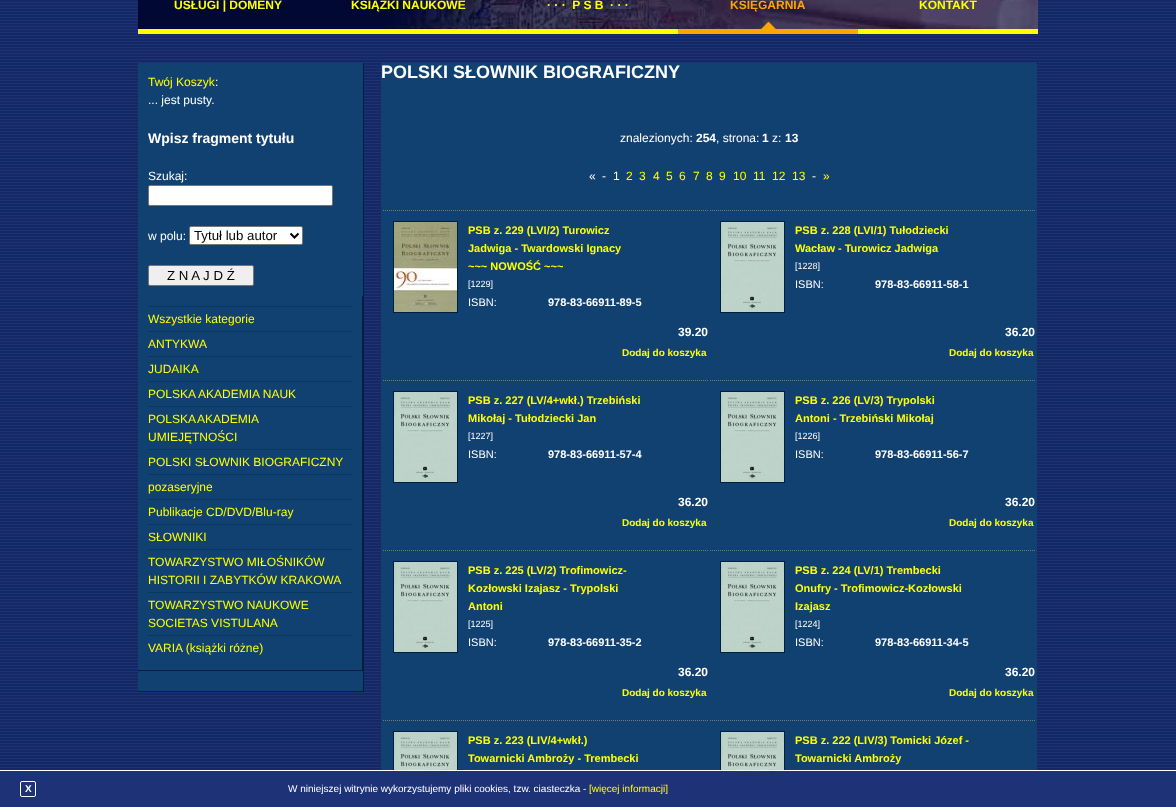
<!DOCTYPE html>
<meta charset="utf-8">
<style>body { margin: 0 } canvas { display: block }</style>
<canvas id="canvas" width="1176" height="807"></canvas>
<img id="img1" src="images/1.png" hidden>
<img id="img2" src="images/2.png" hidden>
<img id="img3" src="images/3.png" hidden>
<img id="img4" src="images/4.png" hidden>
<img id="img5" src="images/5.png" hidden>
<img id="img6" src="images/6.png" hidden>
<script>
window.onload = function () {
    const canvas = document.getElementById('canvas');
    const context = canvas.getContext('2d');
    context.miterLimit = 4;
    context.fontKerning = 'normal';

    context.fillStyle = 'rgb(255, 255, 255)';
    context.fillRect(0, 0, 1176, 807);
    context.drawImage(document.getElementById('img1'), 0, 0, 1176, 770);
    context.drawImage(document.getElementById('img2'), 138, 0, 900, 29);
    context.fillStyle = 'rgb(255, 255, 0)';
    context.fillRect(138, 29, 540, 5);
    context.drawImage(document.getElementById('img3'), 761, 21, 15, 8);
    context.fillStyle = 'rgb(255, 165, 0)';
    context.fillRect(678, 29, 180, 5);
    context.fillStyle = 'rgb(255, 255, 0)';
    context.fillRect(858, 29, 180, 5);
    context.fillStyle = 'rgb(17, 65, 113)';
    context.fillRect(138, 63, 225, 628);
    context.fillStyle = 'rgb(0, 32, 64)';
    context.fillRect(363, 63, 1, 629);
    context.fillRect(138, 691, 226, 1);
    context.fillStyle = 'rgb(255, 255, 255)';
    context.beginPath();
    context.roundRect(148.5, 185.5, 184, 20, 1.5);
    context.fill();
    context.strokeStyle = 'rgb(118, 118, 118)';
    context.stroke();
    context.beginPath();
    context.roundRect(189.5, 226.5, 113, 18, 1.5);
    context.fill();
    context.stroke();
    context.beginPath();
    context.moveTo(290.5, 233.5);
    context.lineTo(294.5, 237.5);
    context.lineTo(298.5, 233.5);
    context.strokeStyle = 'rgb(0, 0, 0)';
    context.lineWidth = 2;
    context.stroke();
    context.fillStyle = 'rgb(239, 239, 239)';
    context.beginPath();
    context.roundRect(148.5, 265.5, 105, 20, 1.5);
    context.fill();
    context.strokeStyle = 'rgb(118, 118, 118)';
    context.lineWidth = 1;
    context.stroke();
    context.fillStyle = 'rgb(0, 32, 64)';
    context.fillRect(362, 296, 1, 375);
    context.fillRect(138, 670, 225, 1);
    context.fillStyle = 'rgb(8, 55, 96)';
    context.fillRect(148, 306, 204, 1);
    context.fillRect(148, 331, 204, 1);
    context.fillRect(148, 356, 204, 1);
    context.fillRect(148, 381, 204, 1);
    context.fillRect(148, 406, 204, 1);
    context.fillRect(148, 449, 204, 1);
    context.fillRect(148, 474, 204, 1);
    context.fillRect(148, 499, 204, 1);
    context.fillRect(148, 524, 204, 1);
    context.fillRect(148, 549, 204, 1);
    context.fillRect(148, 592, 204, 1);
    context.fillRect(148, 635, 204, 1);
    context.fillStyle = 'rgb(0, 32, 64)';
    context.fillRect(1037, 63, 1, 1);
    context.fillStyle = 'rgb(17, 65, 113)';
    context.fillRect(381, 63, 656, 707);
    context.beginPath();
    context.moveTo(383, 210.5);
    context.lineTo(708, 210.5);
    context.strokeStyle = 'rgb(119, 119, 119)';
    context.setLineDash([1, 1]);
    context.stroke();
    context.drawImage(document.getElementById('img4'), 394, 222, 63, 90);
    context.strokeStyle = 'rgb(0, 32, 64)';
    context.setLineDash([]);
    context.strokeRect(393.5, 221.5, 64, 91);
    context.beginPath();
    context.moveTo(710, 210.5);
    context.lineTo(1035, 210.5);
    context.strokeStyle = 'rgb(119, 119, 119)';
    context.setLineDash([1, 1]);
    context.stroke();
    context.drawImage(document.getElementById('img5'), 721, 222, 63, 90);
    context.strokeStyle = 'rgb(0, 32, 64)';
    context.setLineDash([]);
    context.strokeRect(720.5, 221.5, 64, 91);
    context.beginPath();
    context.moveTo(383, 380.5);
    context.lineTo(708, 380.5);
    context.strokeStyle = 'rgb(119, 119, 119)';
    context.setLineDash([1, 1]);
    context.stroke();
    context.drawImage(document.getElementById('img5'), 394, 392, 63, 90);
    context.strokeStyle = 'rgb(0, 32, 64)';
    context.setLineDash([]);
    context.strokeRect(393.5, 391.5, 64, 91);
    context.beginPath();
    context.moveTo(710, 380.5);
    context.lineTo(1035, 380.5);
    context.strokeStyle = 'rgb(119, 119, 119)';
    context.setLineDash([1, 1]);
    context.stroke();
    context.drawImage(document.getElementById('img5'), 721, 392, 63, 90);
    context.strokeStyle = 'rgb(0, 32, 64)';
    context.setLineDash([]);
    context.strokeRect(720.5, 391.5, 64, 91);
    context.beginPath();
    context.moveTo(383, 550.5);
    context.lineTo(708, 550.5);
    context.strokeStyle = 'rgb(119, 119, 119)';
    context.setLineDash([1, 1]);
    context.stroke();
    context.drawImage(document.getElementById('img5'), 394, 562, 63, 90);
    context.strokeStyle = 'rgb(0, 32, 64)';
    context.setLineDash([]);
    context.strokeRect(393.5, 561.5, 64, 91);
    context.beginPath();
    context.moveTo(710, 550.5);
    context.lineTo(1035, 550.5);
    context.strokeStyle = 'rgb(119, 119, 119)';
    context.setLineDash([1, 1]);
    context.stroke();
    context.drawImage(document.getElementById('img5'), 721, 562, 63, 90);
    context.strokeStyle = 'rgb(0, 32, 64)';
    context.setLineDash([]);
    context.strokeRect(720.5, 561.5, 64, 91);
    context.beginPath();
    context.moveTo(383, 720.5);
    context.lineTo(708, 720.5);
    context.strokeStyle = 'rgb(119, 119, 119)';
    context.setLineDash([1, 1]);
    context.stroke();
    context.drawImage(document.getElementById('img6'), 394, 732, 63, 38);
    context.strokeStyle = 'rgb(0, 32, 64)';
    context.setLineDash([]);
    context.strokeRect(393.5, 731.5, 64, 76);
    context.beginPath();
    context.moveTo(710, 720.5);
    context.lineTo(1035, 720.5);
    context.strokeStyle = 'rgb(119, 119, 119)';
    context.setLineDash([1, 1]);
    context.stroke();
    context.drawImage(document.getElementById('img6'), 721, 732, 63, 38);
    context.strokeStyle = 'rgb(0, 32, 64)';
    context.setLineDash([]);
    context.strokeRect(720.5, 731.5, 64, 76);
    context.fillStyle = 'rgb(30, 50, 120)';
    context.fillRect(0, 771, 1176, 36);
    context.fillStyle = 'rgb(255, 255, 255)';
    context.fillRect(393, 770, 392, 1);
    context.beginPath();
    context.roundRect(20.5, 781.5, 15, 15, 1.5);
    context.strokeStyle = 'rgb(255, 255, 255)';
    context.stroke();
    context.font = 'bold 12px Liberation Sans';
    context.fillStyle = 'rgb(255, 255, 0)';
    context.fillText('USŁUGI | DOMENY', 174, 9);
    context.fillText('KSIĄŻKI NAUKOWE', 351, 9);
    context.fillText('· · ·  P S B  · · ·', 547, 9);
    context.fillStyle = 'rgb(255, 165, 0)';
    context.fillText('KSIĘGARNIA', 730, 9);
    context.fillStyle = 'rgb(255, 255, 0)';
    context.fillText('KONTAKT', 919, 9);
    context.font = '12px Liberation Sans';
    context.fillText('Twój Koszyk', 148, 86);
    context.fillStyle = 'rgb(255, 255, 255)';
    context.fillText(':', 215, 86);
    context.fillText('... jest pusty.', 148, 104);
    context.font = 'bold 14px Liberation Sans';
    context.fillText('Wpisz fragment tytułu', 148, 143);
    context.font = '12px Liberation Sans';
    context.fillText('Szukaj:', 148, 180);
    context.fillText('w polu:', 148, 240);
    context.font = '13.25px Liberation Sans';
    context.fillStyle = 'rgb(0, 0, 0)';
    context.fillText('Tytuł lub autor', 194, 240);
    context.fillText('Z N A J D Ź', 167, 280);
    context.font = '12px Liberation Sans';
    context.fillStyle = 'rgb(255, 255, 0)';
    context.fillText('Wszystkie kategorie', 148, 323);
    context.fillText('ANTYKWA', 148, 348);
    context.fillText('JUDAIKA', 148, 373);
    context.fillText('POLSKA AKADEMIA NAUK', 148, 398);
    context.wordSpacing = '-1px';
    context.fillText('POLSKA AKADEMIA', 148, 423);
    context.wordSpacing = '0px';
    context.fillText('UMIEJĘTNOŚCI', 148, 441);
    context.fillText('POLSKI SŁOWNIK BIOGRAFICZNY', 148, 466);
    context.fillText('pozaseryjne', 148, 491);
    context.fillText('Publikacje CD/DVD/Blu-ray', 148, 516);
    context.fillText('SŁOWNIKI', 148, 541);
    context.fillText('TOWARZYSTWO MIŁOŚNIKÓW', 148, 566);
    context.fillText('HISTORII I ZABYTKÓW KRAKOWA', 148, 584);
    context.fillText('TOWARZYSTWO NAUKOWE', 148, 609);
    context.fillText('SOCIETAS VISTULANA', 148, 627);
    context.fillText('VARIA (książki różne)', 148, 652);
    context.font = 'bold 18px Liberation Sans';
    context.fillStyle = 'rgb(255, 255, 255)';
    context.fillText('POLSKI SŁOWNIK BIOGRAFICZNY', 381, 78);
    context.font = '12px Liberation Sans';
    context.fillText('znalezionych:', 620, 142);
    context.font = 'bold 12px Liberation Sans';
    context.fillText('254', 696, 142);
    context.font = '12px Liberation Sans';
    context.fillText(', strona:', 716, 142);
    context.font = 'bold 12px Liberation Sans';
    context.fillText('1', 762, 142);
    context.font = '12px Liberation Sans';
    context.fillText('z:', 772, 142);
    context.font = 'bold 12px Liberation Sans';
    context.fillText('13', 785, 142);
    context.font = '12px Liberation Sans';
    context.fillText('«', 589, 180);
    context.fillText('-', 602, 180);
    context.fillText('1', 613, 180);
    context.fillStyle = 'rgb(255, 255, 0)';
    context.fillText('2', 626, 180);
    context.fillText('3', 639, 180);
    context.fillText('4', 653, 180);
    context.fillText('5', 666, 180);
    context.fillText('6', 679, 180);
    context.fillText('7', 693, 180);
    context.fillText('8', 706, 180);
    context.fillText('9', 719, 180);
    context.fillText('10', 733, 180);
    context.fillText('11', 753, 180);
    context.fillText('12', 772, 180);
    context.fillText('13', 792, 180);
    context.fillStyle = 'rgb(255, 255, 255)';
    context.fillText('-', 812, 180);
    context.fillStyle = 'rgb(255, 255, 0)';
    context.fillText('»', 823, 180);
    context.font = 'bold 11px Liberation Sans';
    context.fillText('PSB z. 229 (LVI/2) Turowicz', 468, 234);
    context.fillText('Jadwiga - Twardowski Ignacy', 468, 252);
    context.fillText('~~~ NOWOŚĆ ~~~', 468, 270);
    context.font = '9px Liberation Sans';
    context.fillStyle = 'rgb(255, 255, 255)';
    context.fillText('[1229]', 468, 287);
    context.font = '11px Liberation Sans';
    context.fillText('ISBN:', 468, 306);
    context.font = 'bold 11px Liberation Sans';
    context.fillText('978-83-66911-89-5', 548, 306);
    context.font = 'bold 12px Liberation Sans';
    context.fillText('39.20', 678, 336);
    context.font = 'bold 10px Liberation Sans';
    context.fillStyle = 'rgb(255, 255, 0)';
    context.fillText('Dodaj do koszyka', 622, 356);
    context.font = 'bold 11px Liberation Sans';
    context.fillText('PSB z. 228 (LVI/1) Tułodziecki', 795, 234);
    context.fillText('Wacław - Turowicz Jadwiga', 795, 252);
    context.font = '9px Liberation Sans';
    context.fillStyle = 'rgb(255, 255, 255)';
    context.fillText('[1228]', 795, 269);
    context.font = '11px Liberation Sans';
    context.fillText('ISBN:', 795, 288);
    context.font = 'bold 11px Liberation Sans';
    context.fillText('978-83-66911-58-1', 875, 288);
    context.font = 'bold 12px Liberation Sans';
    context.fillText('36.20', 1005, 336);
    context.font = 'bold 10px Liberation Sans';
    context.fillStyle = 'rgb(255, 255, 0)';
    context.fillText('Dodaj do koszyka', 949, 356);
    context.font = 'bold 11px Liberation Sans';
    context.fillText('PSB z. 227 (LV/4+wkł.) Trzebiński', 468, 404);
    context.fillText('Mikołaj - Tułodziecki Jan', 468, 422);
    context.font = '9px Liberation Sans';
    context.fillStyle = 'rgb(255, 255, 255)';
    context.fillText('[1227]', 468, 439);
    context.font = '11px Liberation Sans';
    context.fillText('ISBN:', 468, 458);
    context.font = 'bold 11px Liberation Sans';
    context.fillText('978-83-66911-57-4', 548, 458);
    context.font = 'bold 12px Liberation Sans';
    context.fillText('36.20', 678, 506);
    context.font = 'bold 10px Liberation Sans';
    context.fillStyle = 'rgb(255, 255, 0)';
    context.fillText('Dodaj do koszyka', 622, 526);
    context.font = 'bold 11px Liberation Sans';
    context.fillText('PSB z. 226 (LV/3) Trypolski', 795, 404);
    context.fillText('Antoni - Trzebiński Mikołaj', 795, 422);
    context.font = '9px Liberation Sans';
    context.fillStyle = 'rgb(255, 255, 255)';
    context.fillText('[1226]', 795, 439);
    context.font = '11px Liberation Sans';
    context.fillText('ISBN:', 795, 458);
    context.font = 'bold 11px Liberation Sans';
    context.fillText('978-83-66911-56-7', 875, 458);
    context.font = 'bold 12px Liberation Sans';
    context.fillText('36.20', 1005, 506);
    context.font = 'bold 10px Liberation Sans';
    context.fillStyle = 'rgb(255, 255, 0)';
    context.fillText('Dodaj do koszyka', 949, 526);
    context.font = 'bold 11px Liberation Sans';
    context.fillText('PSB z. 225 (LV/2) Trofimowicz-', 468, 574);
    context.fillText('Kozłowski Izajasz - Trypolski', 468, 592);
    context.fillText('Antoni', 468, 610);
    context.font = '9px Liberation Sans';
    context.fillStyle = 'rgb(255, 255, 255)';
    context.fillText('[1225]', 468, 627);
    context.font = '11px Liberation Sans';
    context.fillText('ISBN:', 468, 646);
    context.font = 'bold 11px Liberation Sans';
    context.fillText('978-83-66911-35-2', 548, 646);
    context.font = 'bold 12px Liberation Sans';
    context.fillText('36.20', 678, 676);
    context.font = 'bold 10px Liberation Sans';
    context.fillStyle = 'rgb(255, 255, 0)';
    context.fillText('Dodaj do koszyka', 622, 696);
    context.font = 'bold 11px Liberation Sans';
    context.fillText('PSB z. 224 (LV/1) Trembecki', 795, 574);
    context.fillText('Onufry - Trofimowicz-Kozłowski', 795, 592);
    context.fillText('Izajasz', 795, 610);
    context.font = '9px Liberation Sans';
    context.fillStyle = 'rgb(255, 255, 255)';
    context.fillText('[1224]', 795, 627);
    context.font = '11px Liberation Sans';
    context.fillText('ISBN:', 795, 646);
    context.font = 'bold 11px Liberation Sans';
    context.fillText('978-83-66911-34-5', 875, 646);
    context.font = 'bold 12px Liberation Sans';
    context.fillText('36.20', 1005, 676);
    context.font = 'bold 10px Liberation Sans';
    context.fillStyle = 'rgb(255, 255, 0)';
    context.fillText('Dodaj do koszyka', 949, 696);
    context.font = 'bold 11px Liberation Sans';
    context.fillText('PSB z. 223 (LIV/4+wkł.)', 468, 744);
    context.fillText('Towarnicki Ambroży - Trembecki', 468, 762);
    context.fillText('PSB z. 222 (LIV/3) Tomicki Józef -', 795, 744);
    context.fillText('Towarnicki Ambroży', 795, 762);
    context.font = 'bold 10px Liberation Sans';
    context.fillStyle = 'rgb(255, 255, 255)';
    context.fillText('X', 25, 792);
    context.font = '10px Liberation Sans';
    context.fillText('W niniejszej witrynie wykorzystujemy pliki cookies, tzw. ciasteczka -', 288, 792);
    context.fillStyle = 'rgb(255, 255, 0)';
    context.fillText('[więcej informacji]', 589, 792);
};
</script>
